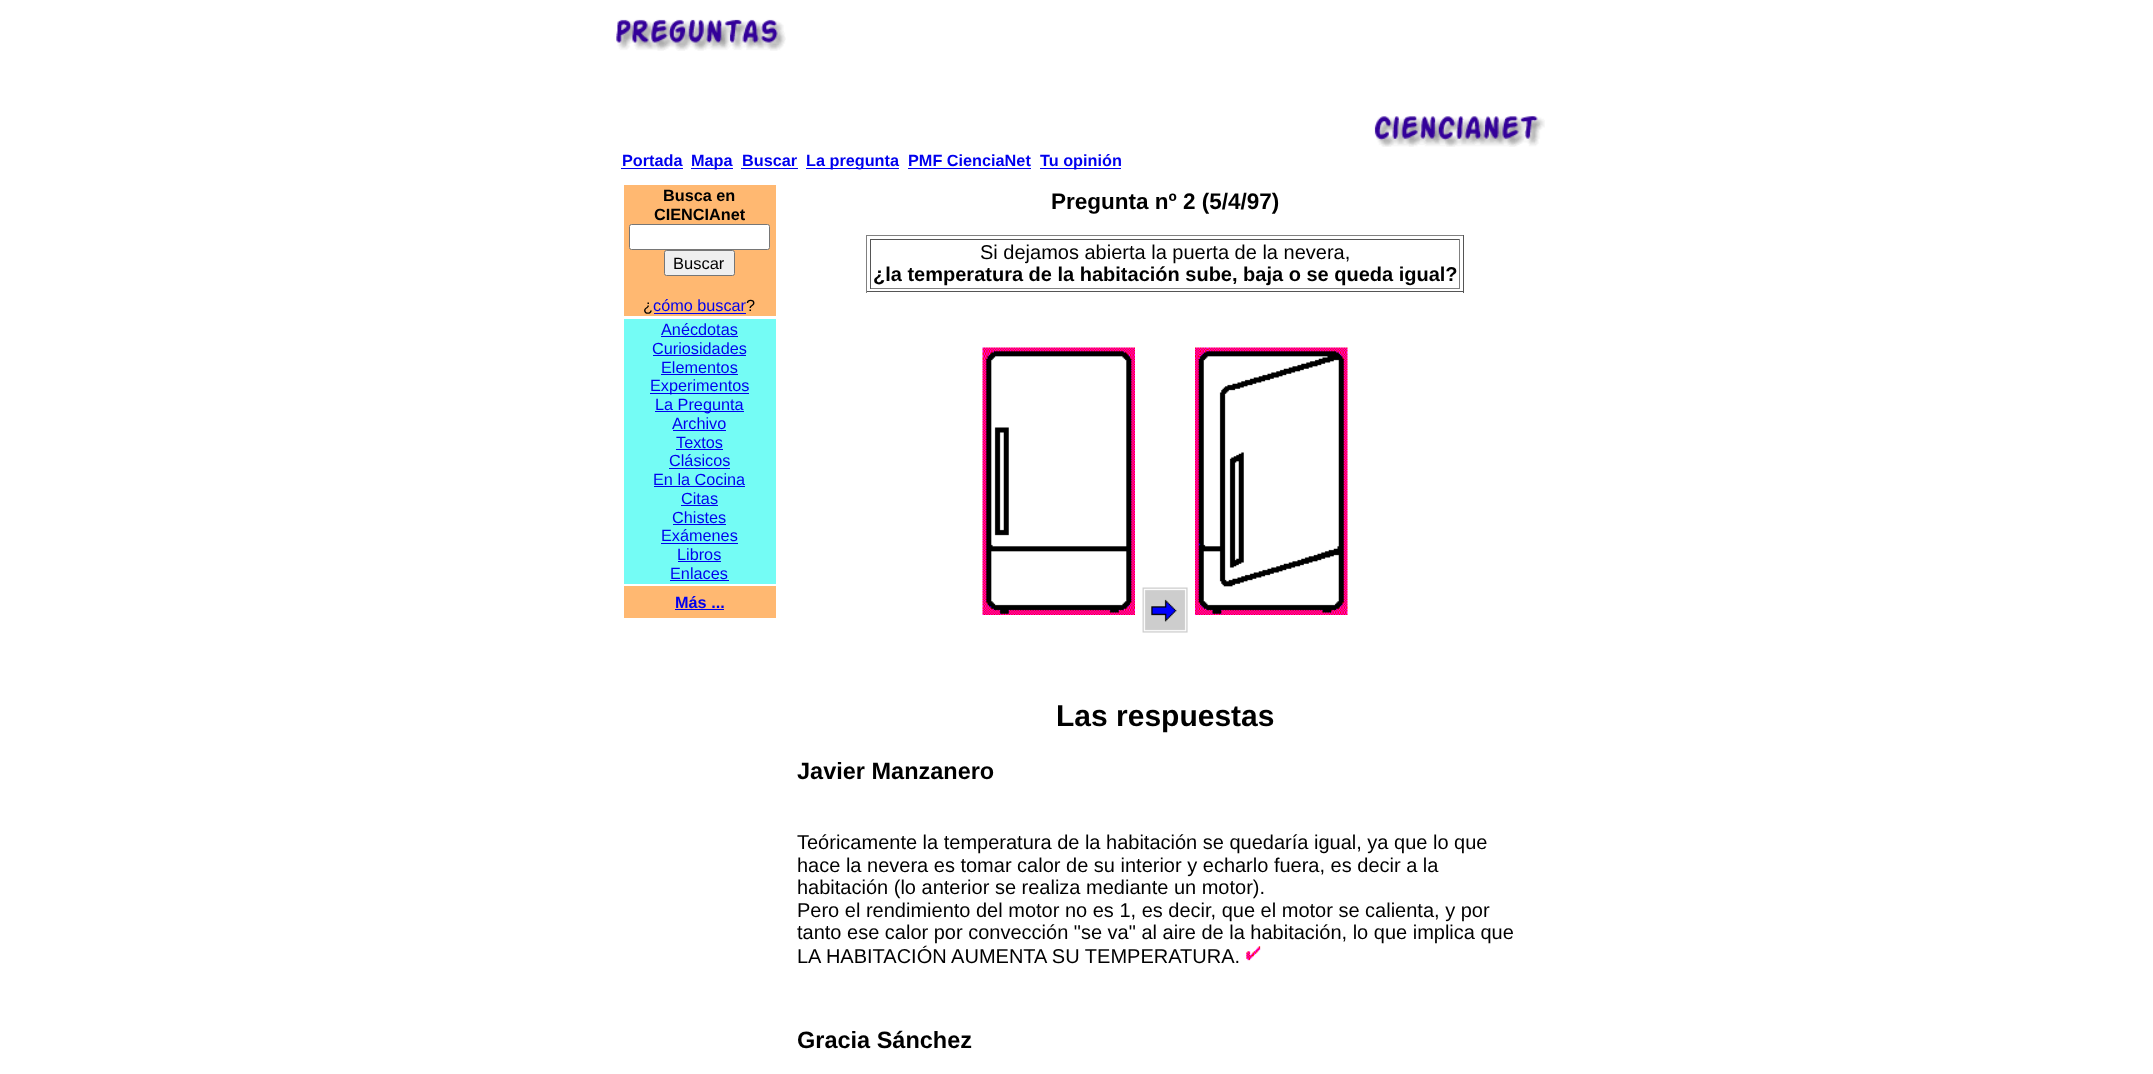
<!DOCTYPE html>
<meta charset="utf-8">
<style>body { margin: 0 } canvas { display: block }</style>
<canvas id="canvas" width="2153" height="1074"></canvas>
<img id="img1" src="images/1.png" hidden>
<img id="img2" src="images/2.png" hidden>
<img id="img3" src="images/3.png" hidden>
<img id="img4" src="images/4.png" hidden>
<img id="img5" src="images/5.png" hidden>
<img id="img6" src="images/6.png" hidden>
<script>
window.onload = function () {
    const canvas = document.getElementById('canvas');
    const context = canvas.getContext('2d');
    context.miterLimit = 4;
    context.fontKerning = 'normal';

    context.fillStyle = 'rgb(255, 255, 255)';
    context.fillRect(0, 0, 2153, 1074);
    context.drawImage(document.getElementById('img1'), 616, 19, 170, 32);
    context.drawImage(document.getElementById('img2'), 1374, 116, 171, 31);
    context.fillStyle = 'rgb(0, 0, 238)';
    context.fillRect(621, 168, 62, 1);
    context.fillRect(691, 168, 42, 1);
    context.fillRect(741, 168, 57, 1);
    context.fillRect(806, 168, 93, 1);
    context.fillRect(908, 168, 123, 1);
    context.fillRect(1040, 168, 81, 1);
    context.fillStyle = 'rgb(255, 184, 113)';
    context.fillRect(624, 185, 152, 131);
    context.fillStyle = 'rgb(255, 255, 255)';
    context.beginPath();
    context.roundRect(629.5, 224.5, 140, 25, 2);
    context.fill();
    context.strokeStyle = 'rgb(118, 118, 118)';
    context.stroke();
    context.fillStyle = 'rgb(239, 239, 239)';
    context.beginPath();
    context.roundRect(664.5, 250.5, 70, 25, 2);
    context.fill();
    context.stroke();
    context.fillStyle = 'rgb(0, 0, 238)';
    context.fillRect(654, 313, 92, 1);
    context.fillStyle = 'rgb(116, 252, 245)';
    context.fillRect(624, 319, 152, 265);
    context.fillStyle = 'rgb(0, 0, 238)';
    context.fillRect(661, 336, 77, 1);
    context.fillRect(653, 355, 93, 1);
    context.fillRect(661, 374, 77, 1);
    context.fillRect(650, 393, 99, 1);
    context.fillRect(655, 411, 89, 1);
    context.fillRect(673, 430, 53, 1);
    context.fillRect(676, 449, 47, 1);
    context.fillRect(669, 468, 61, 1);
    context.fillRect(654, 486, 91, 1);
    context.fillRect(681, 505, 37, 1);
    context.fillRect(673, 524, 53, 1);
    context.fillRect(661, 543, 77, 1);
    context.fillRect(678, 561, 43, 1);
    context.fillRect(670, 580, 59, 1);
    context.fillStyle = 'rgb(255, 184, 113)';
    context.fillRect(624, 586, 152, 32);
    context.fillStyle = 'rgb(0, 0, 238)';
    context.fillRect(675, 609, 49, 1);
    context.fillStyle = 'rgb(128, 128, 128)';
    context.fillRect(866, 235, 598, 1);
    context.fillStyle = 'rgb(85, 85, 85)';
    context.fillRect(1463, 235, 1, 58);
    context.fillRect(866, 291, 598, 1);
    context.fillStyle = 'rgb(128, 128, 128)';
    context.fillRect(866, 235, 1, 58);
    context.fillStyle = 'rgb(85, 85, 85)';
    context.fillRect(870, 239, 590, 1);
    context.fillStyle = 'rgb(128, 128, 128)';
    context.fillRect(1459, 239, 1, 50);
    context.fillRect(870, 288, 590, 1);
    context.fillStyle = 'rgb(85, 85, 85)';
    context.fillRect(870, 239, 1, 50);
    context.drawImage(document.getElementById('img3'), 982, 347, 153, 268);
    context.drawImage(document.getElementById('img4'), 1142, 587, 46, 46);
    context.drawImage(document.getElementById('img5'), 1195, 347, 153, 268);
    context.drawImage(document.getElementById('img6'), 1246, 946, 15, 15);
    context.font = 'bold 16.25px Liberation Sans';
    context.fillStyle = 'rgb(0, 0, 238)';
    context.fillText('Portada', 622, 166);
    context.fillText('Mapa', 691, 166);
    context.fillText('Buscar', 742, 166);
    context.fillText('La pregunta', 806, 166);
    context.fillText('PMF CienciaNet', 908, 166);
    context.fillText('Tu opinión', 1040, 166);
    context.fillStyle = 'rgb(0, 0, 0)';
    context.fillText('Busca en', 663, 201);
    context.fillText('CIENCIAnet', 654, 220);
    context.font = '16.5px Liberation Sans';
    context.fillText('Buscar', 673, 269);
    context.font = '16.25px Liberation Sans';
    context.fillText('¿', 643, 311);
    context.fillStyle = 'rgb(0, 0, 238)';
    context.fillText('cómo buscar', 653, 311);
    context.fillStyle = 'rgb(0, 0, 0)';
    context.fillText('?', 746, 311);
    context.fillStyle = 'rgb(0, 0, 238)';
    context.fillText('Anécdotas', 661, 335);
    context.fillText('Curiosidades', 652, 354);
    context.fillText('Elementos', 661, 373);
    context.fillText('Experimentos', 650, 391);
    context.fillText('La Pregunta', 655, 410);
    context.fillText('Archivo', 672, 429);
    context.fillText('Textos', 676, 448);
    context.fillText('Clásicos', 669, 466);
    context.fillText('En la Cocina', 653, 485);
    context.fillText('Citas', 681, 504);
    context.fillText('Chistes', 672, 523);
    context.fillText('Exámenes', 661, 541);
    context.fillText('Libros', 677, 560);
    context.fillText('Enlaces', 670, 579);
    context.font = 'bold 16.25px Liberation Sans';
    context.fillText('Más ...', 675, 608);
    context.font = 'bold 22.5px Liberation Sans';
    context.fillStyle = 'rgb(0, 0, 0)';
    context.fillText('Pregunta nº 2 (5/4/97)', 1051, 209);
    context.font = '20px Liberation Sans';
    context.fillText('Si dejamos abierta la puerta de la nevera,', 980, 259);
    context.font = 'bold 20px Liberation Sans';
    context.fillText('¿la temperatura de la habitación sube, baja o se queda igual?', 873, 281);
    context.font = 'bold 30px Liberation Sans';
    context.fillText('Las respuestas', 1056, 726);
    context.font = 'bold 23.5px Liberation Sans';
    context.fillText('Javier Manzanero', 797, 779);
    context.font = '20px Liberation Sans';
    context.fillText('Teóricamente la temperatura de la habitación se quedaría igual, ya que lo que', 797, 849);
    context.fillText('hace la nevera es tomar calor de su interior y echarlo fuera, es decir a la', 797, 872);
    context.fillText('habitación (lo anterior se realiza mediante un motor).', 797, 894);
    context.fillText('Pero el rendimiento del motor no es 1, es decir, que el motor se calienta, y por', 797, 917);
    context.fillText('tanto ese calor por convección "se va" al aire de la habitación, lo que implica que', 797, 939);
    context.fillText('LA HABITACIÓN AUMENTA SU TEMPERATURA.', 797, 963);
    context.font = 'bold 23.5px Liberation Sans';
    context.fillText('Gracia Sánchez', 797, 1048);
};
</script>
